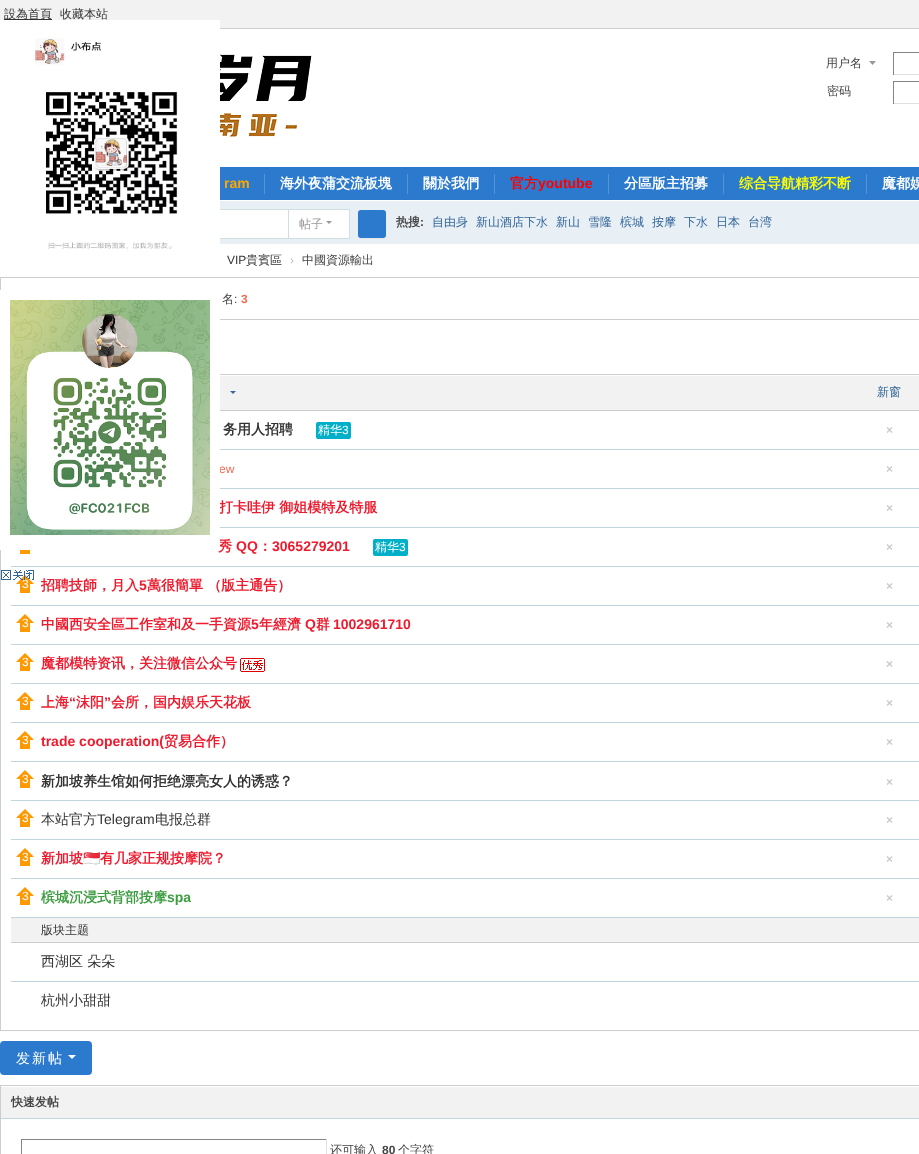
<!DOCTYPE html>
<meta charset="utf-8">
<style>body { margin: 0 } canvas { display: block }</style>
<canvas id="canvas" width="919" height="1154"></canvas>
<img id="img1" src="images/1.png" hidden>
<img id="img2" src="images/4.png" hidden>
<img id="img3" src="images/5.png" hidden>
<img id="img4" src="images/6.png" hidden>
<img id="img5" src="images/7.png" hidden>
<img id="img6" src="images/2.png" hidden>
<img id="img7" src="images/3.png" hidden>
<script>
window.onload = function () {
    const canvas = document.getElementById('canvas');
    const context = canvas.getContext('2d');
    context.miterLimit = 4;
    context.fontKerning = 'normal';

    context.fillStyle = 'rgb(255, 255, 255)';
    context.fillRect(0, 0, 919, 1154);
    context.fillStyle = 'rgb(242, 242, 242)';
    context.fillRect(0, 0, 919, 28);
    context.fillStyle = 'rgb(205, 205, 205)';
    context.fillRect(220, 28, 699, 1);
    context.fillStyle = 'rgb(51, 51, 51)';
    context.fillRect(4, 19, 48, 1);
    context.fillStyle = 'rgb(232, 239, 245)';
    context.fillRect(220, 201, 699, 43);
    context.fillStyle = 'rgb(255, 255, 255)';
    context.fillRect(220, 210, 68, 28);
    context.fillStyle = 'rgb(207, 222, 227)';
    context.fillRect(287, 209, 63, 1);
    context.fillRect(349, 209, 1, 30);
    context.fillRect(287, 238, 63, 1);
    context.strokeStyle = 'rgb(207, 222, 227)';
    context.strokeRect(15.5, 209.5, 273, 29);
    context.fillStyle = 'rgb(255, 255, 255)';
    context.fillRect(0, 20, 220, 219);
    context.drawImage(document.getElementById('img1'), 35, 38, 143, 212);
    context.drawImage(document.getElementById('img2'), 220, 43, 92, 105);
    context.fillStyle = 'rgb(153, 153, 153)';
    context.beginPath();
    context.moveTo(876, 61);
    context.lineTo(869, 61);
    context.lineTo(872.5, 65);
    context.closePath();
    context.fill();
    context.fillStyle = 'rgb(132, 132, 132)';
    context.fillRect(893, 52, 26, 1);
    context.fillStyle = 'rgb(224, 224, 224)';
    context.fillRect(893, 74, 26, 1);
    context.fillStyle = 'rgb(132, 132, 132)';
    context.fillRect(893, 52, 1, 23);
    context.fillRect(893, 81, 26, 1);
    context.fillStyle = 'rgb(224, 224, 224)';
    context.fillRect(893, 103, 26, 1);
    context.fillStyle = 'rgb(132, 132, 132)';
    context.fillRect(893, 81, 1, 23);
    context.fillStyle = 'rgb(43, 122, 205)';
    context.fillRect(220, 167, 699, 33);
    context.fillStyle = 'rgb(85, 149, 215)';
    context.fillRect(264, 174, 1, 20);
    context.fillRect(407, 174, 1, 20);
    context.fillRect(494, 174, 1, 20);
    context.fillRect(608, 174, 1, 20);
    context.fillRect(723, 174, 1, 20);
    context.fillRect(866, 174, 1, 20);
    context.fillStyle = 'rgb(255, 255, 255)';
    context.fillRect(289, 210, 60, 28);
    context.fillStyle = 'rgb(153, 153, 153)';
    context.beginPath();
    context.moveTo(326, 221);
    context.lineTo(332, 221);
    context.lineTo(329, 224);
    context.closePath();
    context.fill();
    context.fillStyle = 'rgb(229, 229, 229)';
    context.beginPath();
    context.moveTo(358, 235);
    context.bezierCurveTo(358, 239.5, 361, 239, 364.5, 239);
    context.lineTo(379.5, 239);
    context.bezierCurveTo(383, 239, 386, 239.5, 386, 235);
    context.bezierCurveTo(386, 236.5, 384.5, 238, 383, 238);
    context.lineTo(361, 238);
    context.bezierCurveTo(359.5, 238, 358, 236.5, 358, 235);
    context.closePath();
    context.fill();
    context.fillStyle = 'rgb(43, 122, 205)';
    context.beginPath();
    context.roundRect(358, 210, 28, 28, 3);
    context.fill();
    context.strokeStyle = 'rgb(205, 205, 205)';
    context.strokeRect(0.5, 277.5, 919, 42);
    context.strokeRect(0.5, 374.5, 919, 656);
    context.fillStyle = 'rgb(242, 242, 242)';
    context.fillRect(220, 376, 699, 34);
    context.fillStyle = 'rgb(205, 205, 205)';
    context.fillRect(220, 410, 699, 1);
    context.fillStyle = 'rgb(51, 102, 153)';
    context.beginPath();
    context.moveTo(230, 391);
    context.lineTo(236, 391);
    context.lineTo(233, 394);
    context.closePath();
    context.fill();
    context.fillStyle = 'rgb(194, 213, 227)';
    context.fillRect(220, 449, 699, 1);
    context.fillStyle = 'rgb(1, 176, 200)';
    context.beginPath();
    context.roundRect(316, 422, 35, 17, 2);
    context.fill();
    context.fillStyle = 'rgb(194, 213, 227)';
    context.fillRect(220, 488, 699, 1);
    context.fillRect(220, 527, 699, 1);
    context.fillStyle = 'rgb(1, 176, 200)';
    context.beginPath();
    context.roundRect(373, 539, 35, 17, 2);
    context.fill();
    context.fillStyle = 'rgb(194, 213, 227)';
    context.fillRect(11, 566, 908, 1);
    context.drawImage(document.getElementById('img3'), 20, 550, 10, 4);
    context.fillRect(11, 605, 908, 1);
    context.drawImage(document.getElementById('img4'), 16, 575, 18, 18);
    context.fillRect(11, 644, 908, 1);
    context.drawImage(document.getElementById('img4'), 16, 614, 18, 18);
    context.fillRect(11, 683, 908, 1);
    context.drawImage(document.getElementById('img4'), 16, 653, 18, 18);
    context.drawImage(document.getElementById('img5'), 240, 658, 25, 14);
    context.fillRect(11, 722, 908, 1);
    context.drawImage(document.getElementById('img4'), 16, 692, 18, 18);
    context.fillRect(11, 761, 908, 1);
    context.drawImage(document.getElementById('img4'), 16, 731, 18, 18);
    context.fillRect(11, 800, 908, 1);
    context.drawImage(document.getElementById('img4'), 16, 770, 18, 18);
    context.fillRect(11, 839, 908, 1);
    context.drawImage(document.getElementById('img4'), 16, 809, 18, 18);
    context.fillRect(11, 878, 908, 1);
    context.drawImage(document.getElementById('img4'), 16, 848, 18, 18);
    context.fillRect(11, 917, 908, 1);
    context.drawImage(document.getElementById('img4'), 16, 887, 18, 18);
    context.fillStyle = 'rgb(242, 242, 242)';
    context.fillRect(11, 918, 908, 24);
    context.fillStyle = 'rgb(205, 205, 205)';
    context.fillRect(11, 942, 908, 1);
    context.fillStyle = 'rgb(194, 213, 227)';
    context.fillRect(11, 981, 908, 1);
    context.fillStyle = 'rgb(43, 122, 205)';
    context.beginPath();
    context.roundRect(0, 1041, 92, 34, 4);
    context.fill();
    context.fillStyle = 'rgb(255, 255, 255)';
    context.beginPath();
    context.moveTo(68, 1055);
    context.lineTo(76, 1055);
    context.lineTo(72, 1059);
    context.closePath();
    context.fill();
    context.strokeRect(0.5, 1085.5, 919, 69);
    context.fillStyle = 'rgb(242, 242, 242)';
    context.fillRect(1, 1087, 918, 31);
    context.fillStyle = 'rgb(194, 213, 227)';
    context.fillRect(1, 1118, 918, 1);
    context.fillStyle = 'rgb(132, 132, 132)';
    context.fillRect(21, 1139, 306, 1);
    context.fillStyle = 'rgb(224, 224, 224)';
    context.fillRect(326, 1139, 1, 15);
    context.fillStyle = 'rgb(132, 132, 132)';
    context.fillRect(21, 1139, 1, 15);
    context.font = '500 12px WenQuanYi Zen Hei';
    context.fillStyle = 'rgb(51, 51, 51)';
    context.fillText('設為首頁', 4, 18);
    context.fillText('收藏本站', 60, 18);
    context.fillStyle = 'rgb(68, 68, 68)';
    context.fillText('用户名', 826, 67);
    context.fillText('密码', 827, 95);
    context.font = 'bold 14px Liberation Sans';
    context.fillStyle = 'rgb(255, 165, 0)';
    context.fillText('ram', 224, 188);
    context.font = 'bold 14px WenQuanYi Zen Hei';
    context.fillStyle = 'rgb(255, 255, 255)';
    context.fillText('海外夜蒲交流板塊', 280, 188);
    context.fillText('關於我們', 423, 188);
    context.fillStyle = 'rgb(255, 0, 0)';
    context.fillText('官方', 510, 188);
    context.font = 'bold 14px Liberation Sans';
    context.fillText('youtube', 538, 188);
    context.font = 'bold 14px WenQuanYi Zen Hei';
    context.fillStyle = 'rgb(255, 255, 255)';
    context.fillText('分區版主招募', 624, 188);
    context.fillStyle = 'rgb(255, 255, 0)';
    context.fillText('综合导航精彩不断', 739, 188);
    context.fillStyle = 'rgb(255, 255, 255)';
    context.fillText('魔都娱', 882, 188);
    context.font = '500 12px WenQuanYi Zen Hei';
    context.fillStyle = 'rgb(153, 153, 153)';
    context.fillText('帖子', 299, 228);
    context.font = 'bold 12px WenQuanYi Zen Hei';
    context.fillStyle = 'rgb(68, 68, 68)';
    context.fillText('热搜', 396, 226);
    context.font = 'bold 12px Liberation Sans';
    context.fillText(':', 420, 226);
    context.font = '500 12px WenQuanYi Zen Hei';
    context.fillStyle = 'rgb(51, 102, 153)';
    context.fillText('自由身', 432, 226);
    context.fillText('新山酒店下水', 476, 226);
    context.fillText('新山', 556, 226);
    context.fillText('雪隆', 588, 226);
    context.fillText('槟城', 620, 226);
    context.fillText('按摩', 652, 226);
    context.fillText('下水', 684, 226);
    context.fillText('日本', 716, 226);
    context.fillText('台湾', 748, 226);
    context.font = '12px Liberation Sans';
    context.fillStyle = 'rgb(51, 51, 51)';
    context.fillText('VIP', 227, 264);
    context.font = '500 12px WenQuanYi Zen Hei';
    context.fillText('貴賓區', 246, 264);
    context.font = '12px Liberation Sans';
    context.fillStyle = 'rgb(189, 189, 189)';
    context.fillText('›', 290, 264);
    context.font = '500 12px WenQuanYi Zen Hei';
    context.fillStyle = 'rgb(68, 68, 68)';
    context.fillText('中國資源輸出', 302, 264);
    context.fillText('名', 222, 303);
    context.font = '12px Liberation Sans';
    context.fillText(':', 234, 303);
    context.font = 'bold 12px Liberation Sans';
    context.fillStyle = 'rgb(242, 108, 79)';
    context.fillText('3', 241, 303);
    context.font = '500 12px WenQuanYi Zen Hei';
    context.fillStyle = 'rgb(51, 102, 153)';
    context.fillText('新窗', 877, 396);
    context.font = 'bold 14px WenQuanYi Zen Hei';
    context.fillStyle = 'rgb(51, 51, 51)';
    context.fillText('务用人招聘', 223, 434);
    context.font = '500 12px WenQuanYi Zen Hei';
    context.fillStyle = 'rgb(255, 255, 255)';
    context.fillText('精华', 318, 434);
    context.font = '12px Liberation Sans';
    context.fillText('3', 342, 434);
    context.font = 'bold 12px Liberation Sans';
    context.fillStyle = 'rgb(204, 204, 204)';
    context.fillText('×', 886, 434);
    context.font = '12px Liberation Sans';
    context.fillStyle = 'rgb(242, 108, 79)';
    context.fillText('ew', 219, 473);
    context.font = 'bold 12px Liberation Sans';
    context.fillStyle = 'rgb(204, 204, 204)';
    context.fillText('×', 886, 473);
    context.font = 'bold 14px WenQuanYi Zen Hei';
    context.fillStyle = 'rgb(238, 27, 46)';
    context.fillText('打卡哇伊 御姐模特及特服', 219, 512);
    context.font = 'bold 12px Liberation Sans';
    context.fillStyle = 'rgb(204, 204, 204)';
    context.fillText('×', 886, 512);
    context.font = 'bold 14px WenQuanYi Zen Hei';
    context.fillStyle = 'rgb(238, 27, 46)';
    context.fillText('秀', 218, 551);
    context.fillStyle = 'rgb(255, 255, 255)';
    context.fillRect(0, 290, 220, 260);
    context.drawImage(document.getElementById('img6'), 10, 300, 200, 235);
    context.font = 'bold 14px Liberation Sans';
    context.fillStyle = 'rgb(238, 27, 46)';
    context.fillText('QQ', 236, 551);
    context.font = 'bold 14px WenQuanYi Zen Hei';
    context.fillText('：', 258, 551);
    context.font = 'bold 14px Liberation Sans';
    context.fillText('3065279201', 272, 551);
    context.font = '500 12px WenQuanYi Zen Hei';
    context.fillStyle = 'rgb(255, 255, 255)';
    context.fillText('精华', 375, 551);
    context.font = '12px Liberation Sans';
    context.fillText('3', 399, 551);
    context.font = 'bold 12px Liberation Sans';
    context.fillStyle = 'rgb(204, 204, 204)';
    context.fillText('×', 886, 551);
    context.font = '12px Liberation Sans';
    context.fillStyle = 'rgb(255, 255, 255)';
    context.fillText('3', 22, 588);
    context.drawImage(document.getElementById('img7'), 1, 570, 33, 10);
    context.font = 'bold 14px WenQuanYi Zen Hei';
    context.fillStyle = 'rgb(238, 27, 46)';
    context.fillText('招聘技師，月入', 41, 590);
    context.font = 'bold 14px Liberation Sans';
    context.fillText('5', 139, 590);
    context.font = 'bold 14px WenQuanYi Zen Hei';
    context.fillText('萬很簡單 （版主通告）', 147, 590);
    context.font = 'bold 12px Liberation Sans';
    context.fillStyle = 'rgb(204, 204, 204)';
    context.fillText('×', 886, 590);
    context.font = '12px Liberation Sans';
    context.fillStyle = 'rgb(255, 255, 255)';
    context.fillText('3', 22, 627);
    context.font = 'bold 14px WenQuanYi Zen Hei';
    context.fillStyle = 'rgb(238, 27, 46)';
    context.fillText('中國西安全區工作室和及一手資源', 41, 629);
    context.font = 'bold 14px Liberation Sans';
    context.fillText('5', 251, 629);
    context.font = 'bold 14px WenQuanYi Zen Hei';
    context.fillText('年經濟', 259, 629);
    context.font = 'bold 14px Liberation Sans';
    context.fillText('Q', 305, 629);
    context.font = 'bold 14px WenQuanYi Zen Hei';
    context.fillText('群', 316, 629);
    context.font = 'bold 14px Liberation Sans';
    context.fillText('1002961710', 333, 629);
    context.font = 'bold 12px Liberation Sans';
    context.fillStyle = 'rgb(204, 204, 204)';
    context.fillText('×', 886, 629);
    context.font = '12px Liberation Sans';
    context.fillStyle = 'rgb(255, 255, 255)';
    context.fillText('3', 22, 666);
    context.font = 'bold 14px WenQuanYi Zen Hei';
    context.fillStyle = 'rgb(238, 27, 46)';
    context.fillText('魔都模特资讯，关注微信公众号', 41, 668);
    context.font = 'bold 12px Liberation Sans';
    context.fillStyle = 'rgb(204, 204, 204)';
    context.fillText('×', 886, 668);
    context.font = '12px Liberation Sans';
    context.fillStyle = 'rgb(255, 255, 255)';
    context.fillText('3', 22, 705);
    context.font = 'bold 14px WenQuanYi Zen Hei';
    context.fillStyle = 'rgb(238, 27, 46)';
    context.fillText('上海', 41, 707);
    context.font = 'bold 14px Liberation Sans';
    context.fillText('“', 69, 707);
    context.font = 'bold 14px WenQuanYi Zen Hei';
    context.fillText('沫阳', 76, 707);
    context.font = 'bold 14px Liberation Sans';
    context.fillText('”', 104, 707);
    context.font = 'bold 14px WenQuanYi Zen Hei';
    context.fillText('会所，国内娱乐天花板', 111, 707);
    context.font = 'bold 12px Liberation Sans';
    context.fillStyle = 'rgb(204, 204, 204)';
    context.fillText('×', 886, 707);
    context.font = '12px Liberation Sans';
    context.fillStyle = 'rgb(255, 255, 255)';
    context.fillText('3', 22, 744);
    context.font = 'bold 14px Liberation Sans';
    context.fillStyle = 'rgb(238, 27, 46)';
    context.fillText('trade cooperation(', 41, 746);
    context.font = 'bold 14px WenQuanYi Zen Hei';
    context.fillText('贸易合作）', 164, 746);
    context.font = 'bold 12px Liberation Sans';
    context.fillStyle = 'rgb(204, 204, 204)';
    context.fillText('×', 886, 746);
    context.font = '12px Liberation Sans';
    context.fillStyle = 'rgb(255, 255, 255)';
    context.fillText('3', 22, 783);
    context.font = 'bold 14px WenQuanYi Zen Hei';
    context.fillStyle = 'rgb(51, 51, 51)';
    context.fillText('新加坡养生馆如何拒绝漂亮女人的诱惑？', 41, 786);
    context.font = 'bold 12px Liberation Sans';
    context.fillStyle = 'rgb(204, 204, 204)';
    context.fillText('×', 886, 786);
    context.font = '12px Liberation Sans';
    context.fillStyle = 'rgb(255, 255, 255)';
    context.fillText('3', 22, 822);
    context.font = '500 14px WenQuanYi Zen Hei';
    context.fillStyle = 'rgb(51, 51, 51)';
    context.fillText('本站官方', 41, 824);
    context.font = '14px Liberation Sans';
    context.fillText('Telegram', 97, 824);
    context.font = '500 14px WenQuanYi Zen Hei';
    context.fillText('电报总群', 155, 824);
    context.font = 'bold 12px Liberation Sans';
    context.fillStyle = 'rgb(204, 204, 204)';
    context.fillText('×', 886, 824);
    context.font = '12px Liberation Sans';
    context.fillStyle = 'rgb(255, 255, 255)';
    context.fillText('3', 22, 861);
    context.font = 'bold 14px WenQuanYi Zen Hei';
    context.fillStyle = 'rgb(238, 27, 46)';
    context.fillText('新加坡', 41, 863);
    context.font = 'bold 14px Noto Color Emoji';
    context.fillText('🇸🇬', 83, 863);
    context.font = 'bold 14px WenQuanYi Zen Hei';
    context.fillText('有几家正规按摩院？', 100, 863);
    context.font = 'bold 12px Liberation Sans';
    context.fillStyle = 'rgb(204, 204, 204)';
    context.fillText('×', 886, 863);
    context.font = '12px Liberation Sans';
    context.fillStyle = 'rgb(255, 255, 255)';
    context.fillText('3', 22, 900);
    context.font = 'bold 14px WenQuanYi Zen Hei';
    context.fillStyle = 'rgb(60, 157, 64)';
    context.fillText('槟城沉浸式背部按摩', 41, 902);
    context.font = 'bold 14px Liberation Sans';
    context.fillText('spa', 167, 902);
    context.font = 'bold 12px Liberation Sans';
    context.fillStyle = 'rgb(204, 204, 204)';
    context.fillText('×', 886, 902);
    context.font = '500 12px WenQuanYi Zen Hei';
    context.fillStyle = 'rgb(51, 51, 51)';
    context.fillText('版块主题', 41, 934);
    context.font = '500 14px WenQuanYi Zen Hei';
    context.fillText('西湖区 朵朵', 41, 966);
    context.fillText('杭州小甜甜', 41, 1005);
    context.letterSpacing = '2px';
    context.fillStyle = 'rgb(255, 255, 255)';
    context.fillText('发新帖', 16, 1063);
    context.letterSpacing = '0px';
    context.font = 'bold 12px WenQuanYi Zen Hei';
    context.fillStyle = 'rgb(68, 68, 68)';
    context.fillText('快速发帖', 11, 1106);
    context.font = '500 12px WenQuanYi Zen Hei';
    context.fillText('还可输入', 330, 1154);
    context.font = 'bold 12px Liberation Sans';
    context.fillText('80', 382, 1154);
    context.font = '500 12px WenQuanYi Zen Hei';
    context.fillText('个字符', 398, 1154);
};
</script>
